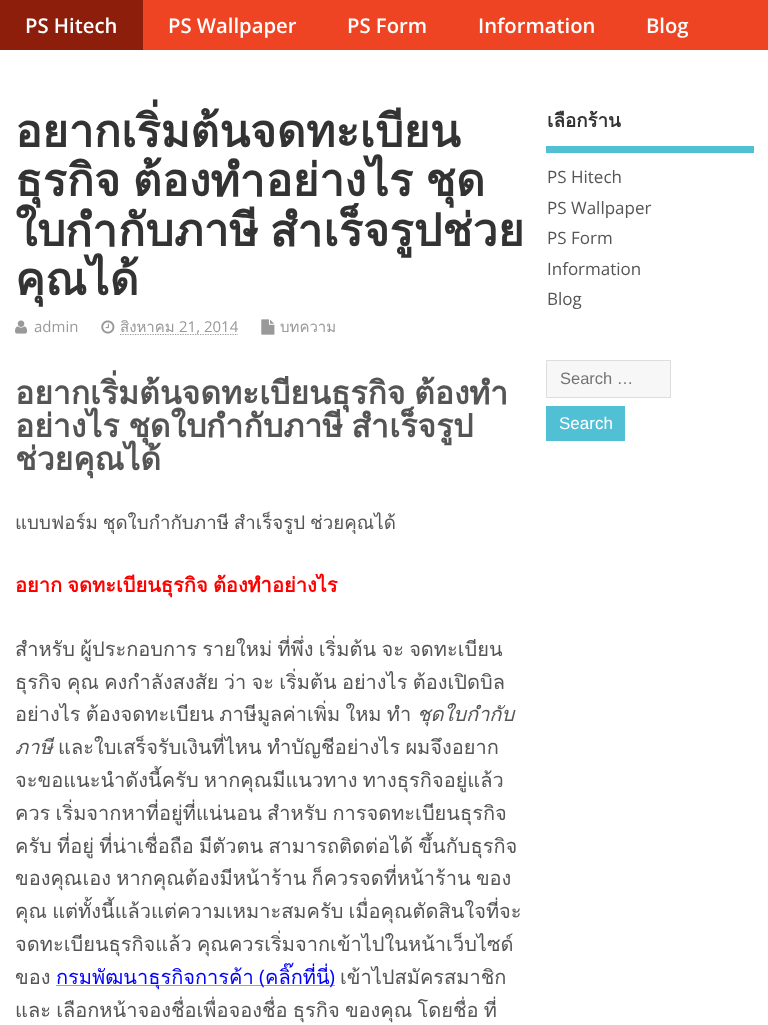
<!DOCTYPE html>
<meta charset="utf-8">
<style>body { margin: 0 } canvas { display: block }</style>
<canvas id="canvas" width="768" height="1025"></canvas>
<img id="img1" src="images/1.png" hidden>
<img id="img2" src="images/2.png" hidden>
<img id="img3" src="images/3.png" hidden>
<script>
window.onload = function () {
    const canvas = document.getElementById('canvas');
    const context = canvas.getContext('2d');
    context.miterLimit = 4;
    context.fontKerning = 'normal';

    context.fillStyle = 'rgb(255, 255, 255)';
    context.fillRect(0, 0, 768, 1025);
    context.fillStyle = 'rgb(239, 68, 35)';
    context.fillRect(143, 0, 625, 50);
    context.fillStyle = 'rgb(142, 30, 12)';
    context.fillRect(0, 0, 143, 50);
    context.drawImage(document.getElementById('img1'), 15, 320, 13, 14);
    context.drawImage(document.getElementById('img2'), 101, 320, 14, 14);
    context.beginPath();
    context.moveTo(120, 334.5);
    context.lineTo(238, 334.5);
    context.strokeStyle = 'rgb(153, 153, 153)';
    context.lineWidth = 1.2;
    context.setLineDash([1.25, 1.25]);
    context.stroke();
    context.drawImage(document.getElementById('img3'), 261, 319, 14, 16);
    context.fillStyle = 'rgb(82, 192, 212)';
    context.fillRect(56, 985, 279, 1);
    context.fillRect(546, 146, 208, 7);
    context.fillStyle = 'rgb(247, 247, 247)';
    context.beginPath();
    context.rect(546.5, 360.5, 124, 37);
    context.fill();
    context.strokeStyle = 'rgb(221, 221, 221)';
    context.lineWidth = 1;
    context.setLineDash([]);
    context.stroke();
    context.fillStyle = 'rgb(82, 192, 212)';
    context.fillRect(546, 406, 79, 35);
    context.font = '600 20.25px Open Sans';
    context.fillStyle = 'rgb(255, 255, 255)';
    context.fillText('PS Hitech', 25, 33);
    context.fillText('PS Wallpaper', 168, 33);
    context.fillText('PS Form', 347, 33);
    context.fillText('Information', 478, 33);
    context.fillText('Blog', 646, 33);
    context.font = 'bold 45px Loma';
    context.fillStyle = 'rgb(51, 51, 51)';
    context.fillText('อยากเริ่มต้นจดทะเบียน', 15, 147);
    context.wordSpacing = '-3px';
    context.fillText('ธุรกิจ ต้องทำอย่างไร ชุด', 15, 196);
    context.fillText('ใบกำกับภาษี สำเร็จรูปช่วย', 15, 246);
    context.wordSpacing = '0px';
    context.fillText('คุณได้', 15, 295);
    context.font = '15px Open Sans';
    context.fillStyle = 'rgb(153, 153, 153)';
    context.fillText('admin', 34, 332);
    context.font = '15px Loma';
    context.fillText('สิงหาคม', 120, 332);
    context.font = '15px Open Sans';
    context.fillText('21, 2014', 179, 332);
    context.font = '15px Loma';
    context.fillText('บทความ', 280, 332);
    context.wordSpacing = '-2px';
    context.font = 'bold 31.9px Loma';
    context.fillStyle = 'rgb(85, 85, 85)';
    context.fillText('อยากเริ่มต้นจดทะเบียนธุรกิจ ต้องทำ', 15, 404);
    context.fillText('อย่างไร ชุดใบกำกับภาษี สำเร็จรูป', 15, 437);
    context.wordSpacing = '0px';
    context.fillText('ช่วยคุณได้', 15, 470);
    context.wordSpacing = '-1.5px';
    context.font = '18.75px Loma';
    context.fillText('แบบฟอร์ม ชุดใบกำกับภาษี สำเร็จรูป ช่วยคุณได้', 15, 529);
    context.font = 'bold 20px Loma';
    context.fillStyle = 'rgb(255, 0, 0)';
    context.fillText('อยาก จดทะเบียนธุรกิจ ต้องทำอย่างไร', 15, 592);
    context.font = '20px Loma';
    context.fillStyle = 'rgb(85, 85, 85)';
    context.fillText('สำหรับ ผู้ประกอบการ รายใหม่ ที่พึ่ง เริ่มต้น จะ จดทะเบียน', 15, 656);
    context.fillText('ธุรกิจ คุณ คงกำลังสงสัย ว่า จะ เริ่มต้น อย่างไร ต้องเปิดบิล', 15, 689);
    context.fillText('อย่างไร ต้องจดทะเบียน ภาษีมูลค่าเพิ่ม ใหม ทำ', 15, 721);
    context.wordSpacing = '0px';
    context.font = 'italic 20px Loma';
    context.fillText('ชุดใบกำกับ', 417, 721);
    context.fillText('ภาษี', 15, 754);
    context.wordSpacing = '-1.5px';
    context.font = '20px Loma';
    context.fillText('และใบเสร็จรับเงินที่ไหน ทำบัญชีอย่างไร ผมจึงอยาก', 58, 754);
    context.fillText('จะขอแนะนำดังนี้ครับ หากคุณมีแนวทาง ทางธุรกิจอยู่แล้ว', 15, 787);
    context.fillText('ควร เริ่มจากหาที่อยู่ที่แน่นอน สำหรับ การจดทะเบียนธุรกิจ', 15, 820);
    context.fillText('ครับ ที่อยู่ ที่น่าเชื่อถือ มีตัวตน สามารถติดต่อได้ ขึ้นกับธุรกิจ', 15, 853);
    context.fillText('ของคุณเอง หากคุณต้องมีหน้าร้าน ก็ควรจดที่หน้าร้าน ของ', 15, 885);
    context.fillText('คุณ แต่ทั้งนี้แล้วแต่ความเหมาะสมครับ เมื่อคุณตัดสินใจที่จะ', 15, 918);
    context.fillText('จดทะเบียนธุรกิจแล้ว คุณควรเริ่มจากเข้าไปในหน้าเว็บไซด์', 15, 951);
    context.wordSpacing = '0px';
    context.fillText('ของ', 15, 984);
    context.fillStyle = 'rgb(0, 0, 255)';
    context.fillText('กรมพัฒนาธุรกิจการค้า', 56, 984);
    context.font = '20px Open Sans';
    context.fillText('(', 259, 984);
    context.font = '20px Loma';
    context.fillText('คลิ๊กที่นี่', 265, 984);
    context.font = '20px Open Sans';
    context.fillText(')', 329, 984);
    context.font = '20px Loma';
    context.fillStyle = 'rgb(85, 85, 85)';
    context.fillText('เข้าไปสมัครสมาชิก', 340, 984);
    context.wordSpacing = '-1.5px';
    context.fillText('และ เลือกหน้าจองชื่อเพื่อจองชื่อ ธุรกิจ ของคุณ โดยชื่อ ที่', 15, 1017);
    context.save();
    context.beginPath();
    context.rect(546, 106, 208, 380);
    context.clip();
    context.wordSpacing = '0px';
    context.font = 'bold 18.75px Loma';
    context.fillStyle = 'rgb(51, 51, 51)';
    context.fillText('เลือกร้าน', 547, 127);
    context.restore();
    context.wordSpacing = '0px';
    context.font = '17px Open Sans';
    context.fillText('PS Hitech', 547, 183);
    context.fillText('PS Wallpaper', 547, 214);
    context.fillText('PS Form', 547, 244);
    context.fillText('Information', 547, 275);
    context.fillText('Blog', 547, 305);
    context.font = '16.5px Liberation Sans';
    context.fillStyle = 'rgb(117, 117, 117)';
    context.fillText('Search …', 560, 384);
    context.font = '17px Liberation Sans';
    context.fillStyle = 'rgb(255, 255, 255)';
    context.fillText('Search', 559, 429);
};
</script>
